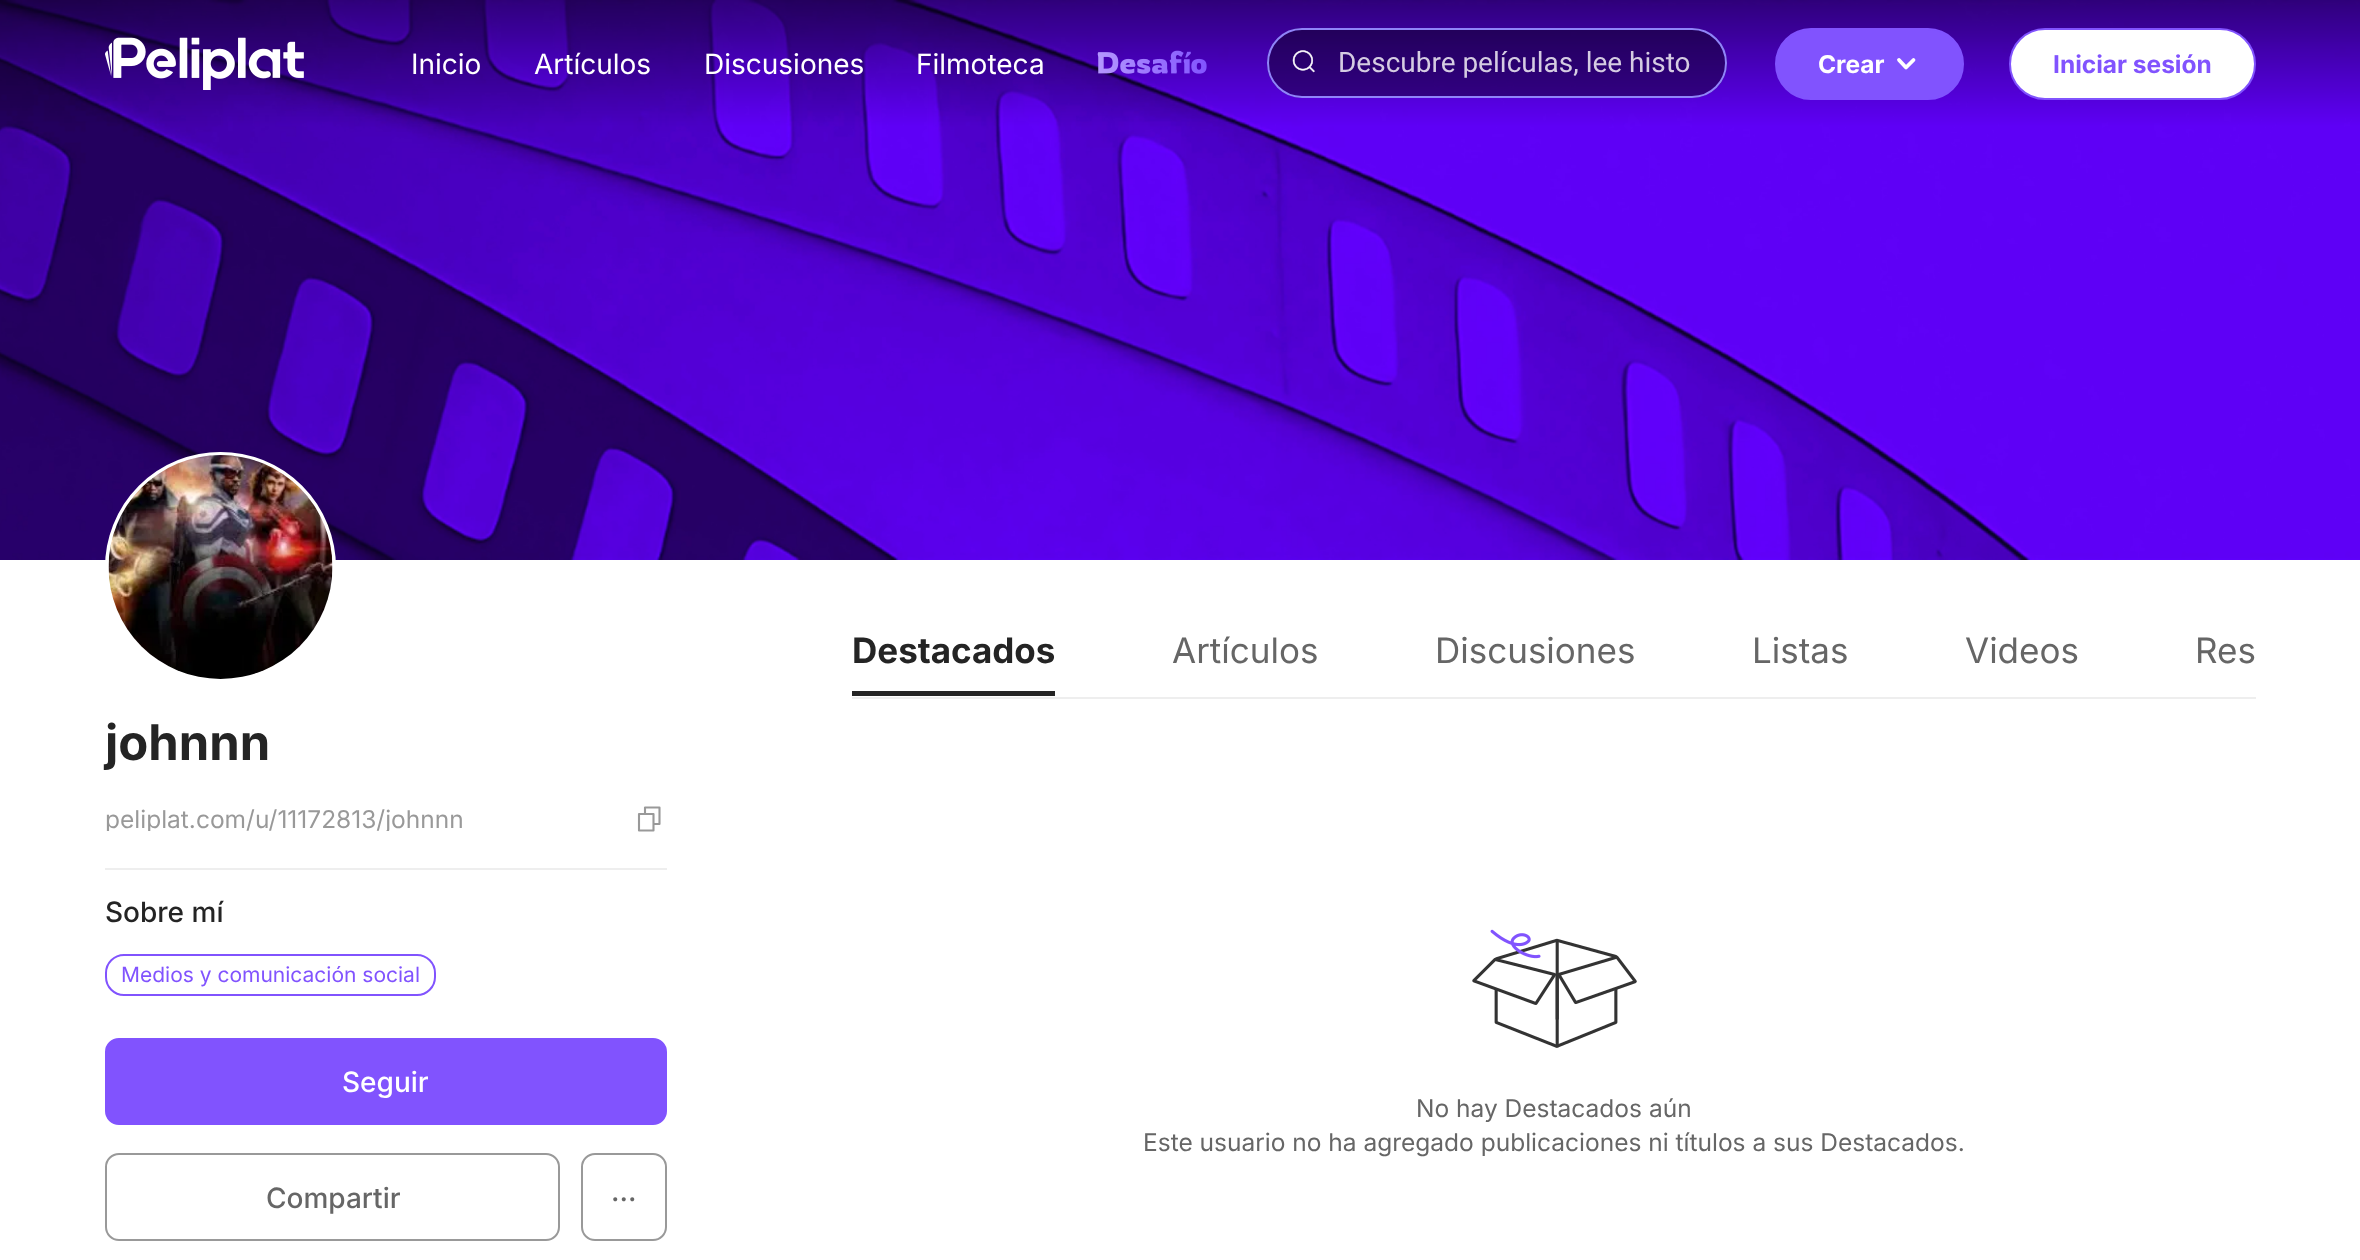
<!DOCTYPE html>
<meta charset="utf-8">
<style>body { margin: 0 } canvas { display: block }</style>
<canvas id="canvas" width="2360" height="1260"></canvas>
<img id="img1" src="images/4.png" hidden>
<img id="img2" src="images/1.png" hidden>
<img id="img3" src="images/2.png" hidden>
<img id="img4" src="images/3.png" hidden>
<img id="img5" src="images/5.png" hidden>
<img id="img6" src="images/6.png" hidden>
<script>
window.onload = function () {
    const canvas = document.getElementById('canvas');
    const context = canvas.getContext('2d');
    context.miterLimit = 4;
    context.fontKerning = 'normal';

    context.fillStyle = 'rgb(255, 255, 255)';
    context.fillRect(0, 0, 2360, 1260);
    context.drawImage(document.getElementById('img1'), 0, 0, 2360, 560);
    context.drawImage(document.getElementById('img2'), 105, 37, 199, 53);
    context.drawImage(document.getElementById('img3'), 1097, 50, 110, 24);
    context.fillStyle = 'rgba(0, 0, 0, 0.4)';
    context.beginPath();
    context.roundRect(1267, 28, 460, 70, 35);
    context.fill();
    context.beginPath();
    context.roundRect(1268, 29, 458, 68, 34);
    context.strokeStyle = 'rgba(148, 137, 255, 0.96)';
    context.lineWidth = 2;
    context.stroke();
    context.drawImage(document.getElementById('img4'), 1292, 50, 23, 23);
    context.fillStyle = 'rgb(129, 83, 254)';
    context.beginPath();
    context.roundRect(1776, 29, 187, 70, 35);
    context.fill();
    context.strokeStyle = 'rgb(129, 83, 254)';
    context.stroke();
    context.beginPath();
    context.moveTo(1913.5, 60);
    context.lineTo(1906, 67.5);
    context.lineTo(1899, 60);
    context.strokeStyle = 'rgb(255, 255, 255)';
    context.lineWidth = 3.8;
    context.lineCap = 'round';
    context.lineJoin = 'round';
    context.stroke();
    context.fillStyle = 'rgb(255, 255, 255)';
    context.beginPath();
    context.roundRect(2010, 29, 245, 70, 35);
    context.fill();
    context.strokeStyle = 'rgb(129, 83, 254)';
    context.lineWidth = 2;
    context.lineJoin = 'miter';
    context.stroke();
    context.beginPath();
    context.arc(220.5, 567.5, 113.5, 0, 2 * Math.PI);
    context.strokeStyle = 'rgb(255, 255, 255)';
    context.lineWidth = 4;
    context.stroke();
    context.drawImage(document.getElementById('img5'), 108, 455, 225, 224);
    context.fillStyle = 'rgb(238, 238, 238)';
    context.fillRect(105, 868, 562, 2);
    context.beginPath();
    context.moveTo(654, 824);
    context.lineTo(659.5, 824);
    context.lineTo(659.5, 807.5);
    context.lineTo(645, 807.5);
    context.lineTo(645, 814);
    context.moveTo(653.5, 814);
    context.lineTo(639, 814);
    context.lineTo(639, 830.5);
    context.lineTo(653.5, 830.5);
    context.closePath();
    context.strokeStyle = 'rgb(153, 153, 153)';
    context.lineWidth = 2.1;
    context.lineJoin = 'round';
    context.stroke();
    context.beginPath();
    context.roundRect(106, 955, 329, 40, 18);
    context.strokeStyle = 'rgb(129, 83, 254)';
    context.lineWidth = 2;
    context.lineJoin = 'miter';
    context.stroke();
    context.fillStyle = 'rgb(129, 83, 254)';
    context.beginPath();
    context.roundRect(106, 1039, 560, 85, 13);
    context.fill();
    context.stroke();
    context.beginPath();
    context.roundRect(106, 1154, 453, 86, 13);
    context.strokeStyle = 'rgb(153, 153, 153)';
    context.stroke();
    context.beginPath();
    context.roundRect(582, 1154, 84, 86, 13);
    context.stroke();
    context.fillStyle = 'rgb(238, 238, 238)';
    context.fillRect(852, 697, 1404, 2);
    context.fillStyle = 'rgb(36, 36, 36)';
    context.fillRect(852, 691, 203, 5);
    context.drawImage(document.getElementById('img6'), 1472, 929, 165, 119);
    context.font = '28px Inter';
    context.fillStyle = 'rgb(255, 255, 255)';
    context.fillText('Inicio', 411, 74);
    context.fillText('Artículos', 534, 74);
    context.fillText('Discusiones', 704, 74);
    context.fillText('Filmoteca', 916, 74);
    context.font = '28px Roboto';
    context.fillStyle = 'rgb(213, 204, 226)';
    context.fillText('Descubre películas, lee histo', 1338, 72);
    context.font = 'bold 24.5px Inter';
    context.fillStyle = 'rgb(255, 255, 255)';
    context.fillText('Crear', 1818, 73);
    context.fillStyle = 'rgb(129, 83, 254)';
    context.fillText('Iniciar sesión', 2053, 73);
    context.font = 'bold 49px Inter';
    context.fillStyle = 'rgb(36, 36, 36)';
    context.fillText('johnnn', 105, 760);
    context.save();
    context.beginPath();
    context.rect(105, 807, 513, 24);
    context.clip();
    context.font = '24.5px Inter';
    context.fillStyle = 'rgb(153, 153, 153)';
    context.fillText('peliplat.com/u/11172813/johnnn', 105, 828);
    context.restore();
    context.font = '500 28px Inter';
    context.fillText('Sobre mí', 105, 922);
    context.font = '21px Inter';
    context.fillStyle = 'rgb(129, 83, 254)';
    context.fillText('Medios y comunicación social', 121, 982);
    context.font = '500 28px Inter';
    context.fillStyle = 'rgb(255, 255, 255)';
    context.fillText('Seguir', 342, 1092);
    context.fillStyle = 'rgb(102, 102, 102)';
    context.fillText('Compartir', 266, 1208);
    context.fillText('...', 611, 1201);
    context.font = 'bold 35px Inter';
    context.fillStyle = 'rgb(36, 36, 36)';
    context.fillText('Destacados', 852, 663);
    context.font = '35px Inter';
    context.fillStyle = 'rgb(102, 102, 102)';
    context.fillText('Artículos', 1172, 663);
    context.fillText('Discusiones', 1435, 663);
    context.fillText('Listas', 1752, 663);
    context.fillText('Videos', 1965, 663);
    context.fillText('Res', 2195, 663);
    context.font = '24.5px Inter';
    context.fillText('No hay Destacados aún', 1416, 1117);
    context.fillText('Este usuario no ha agregado publicaciones ni títulos a sus Destacados.', 1143, 1151);
};
</script>
